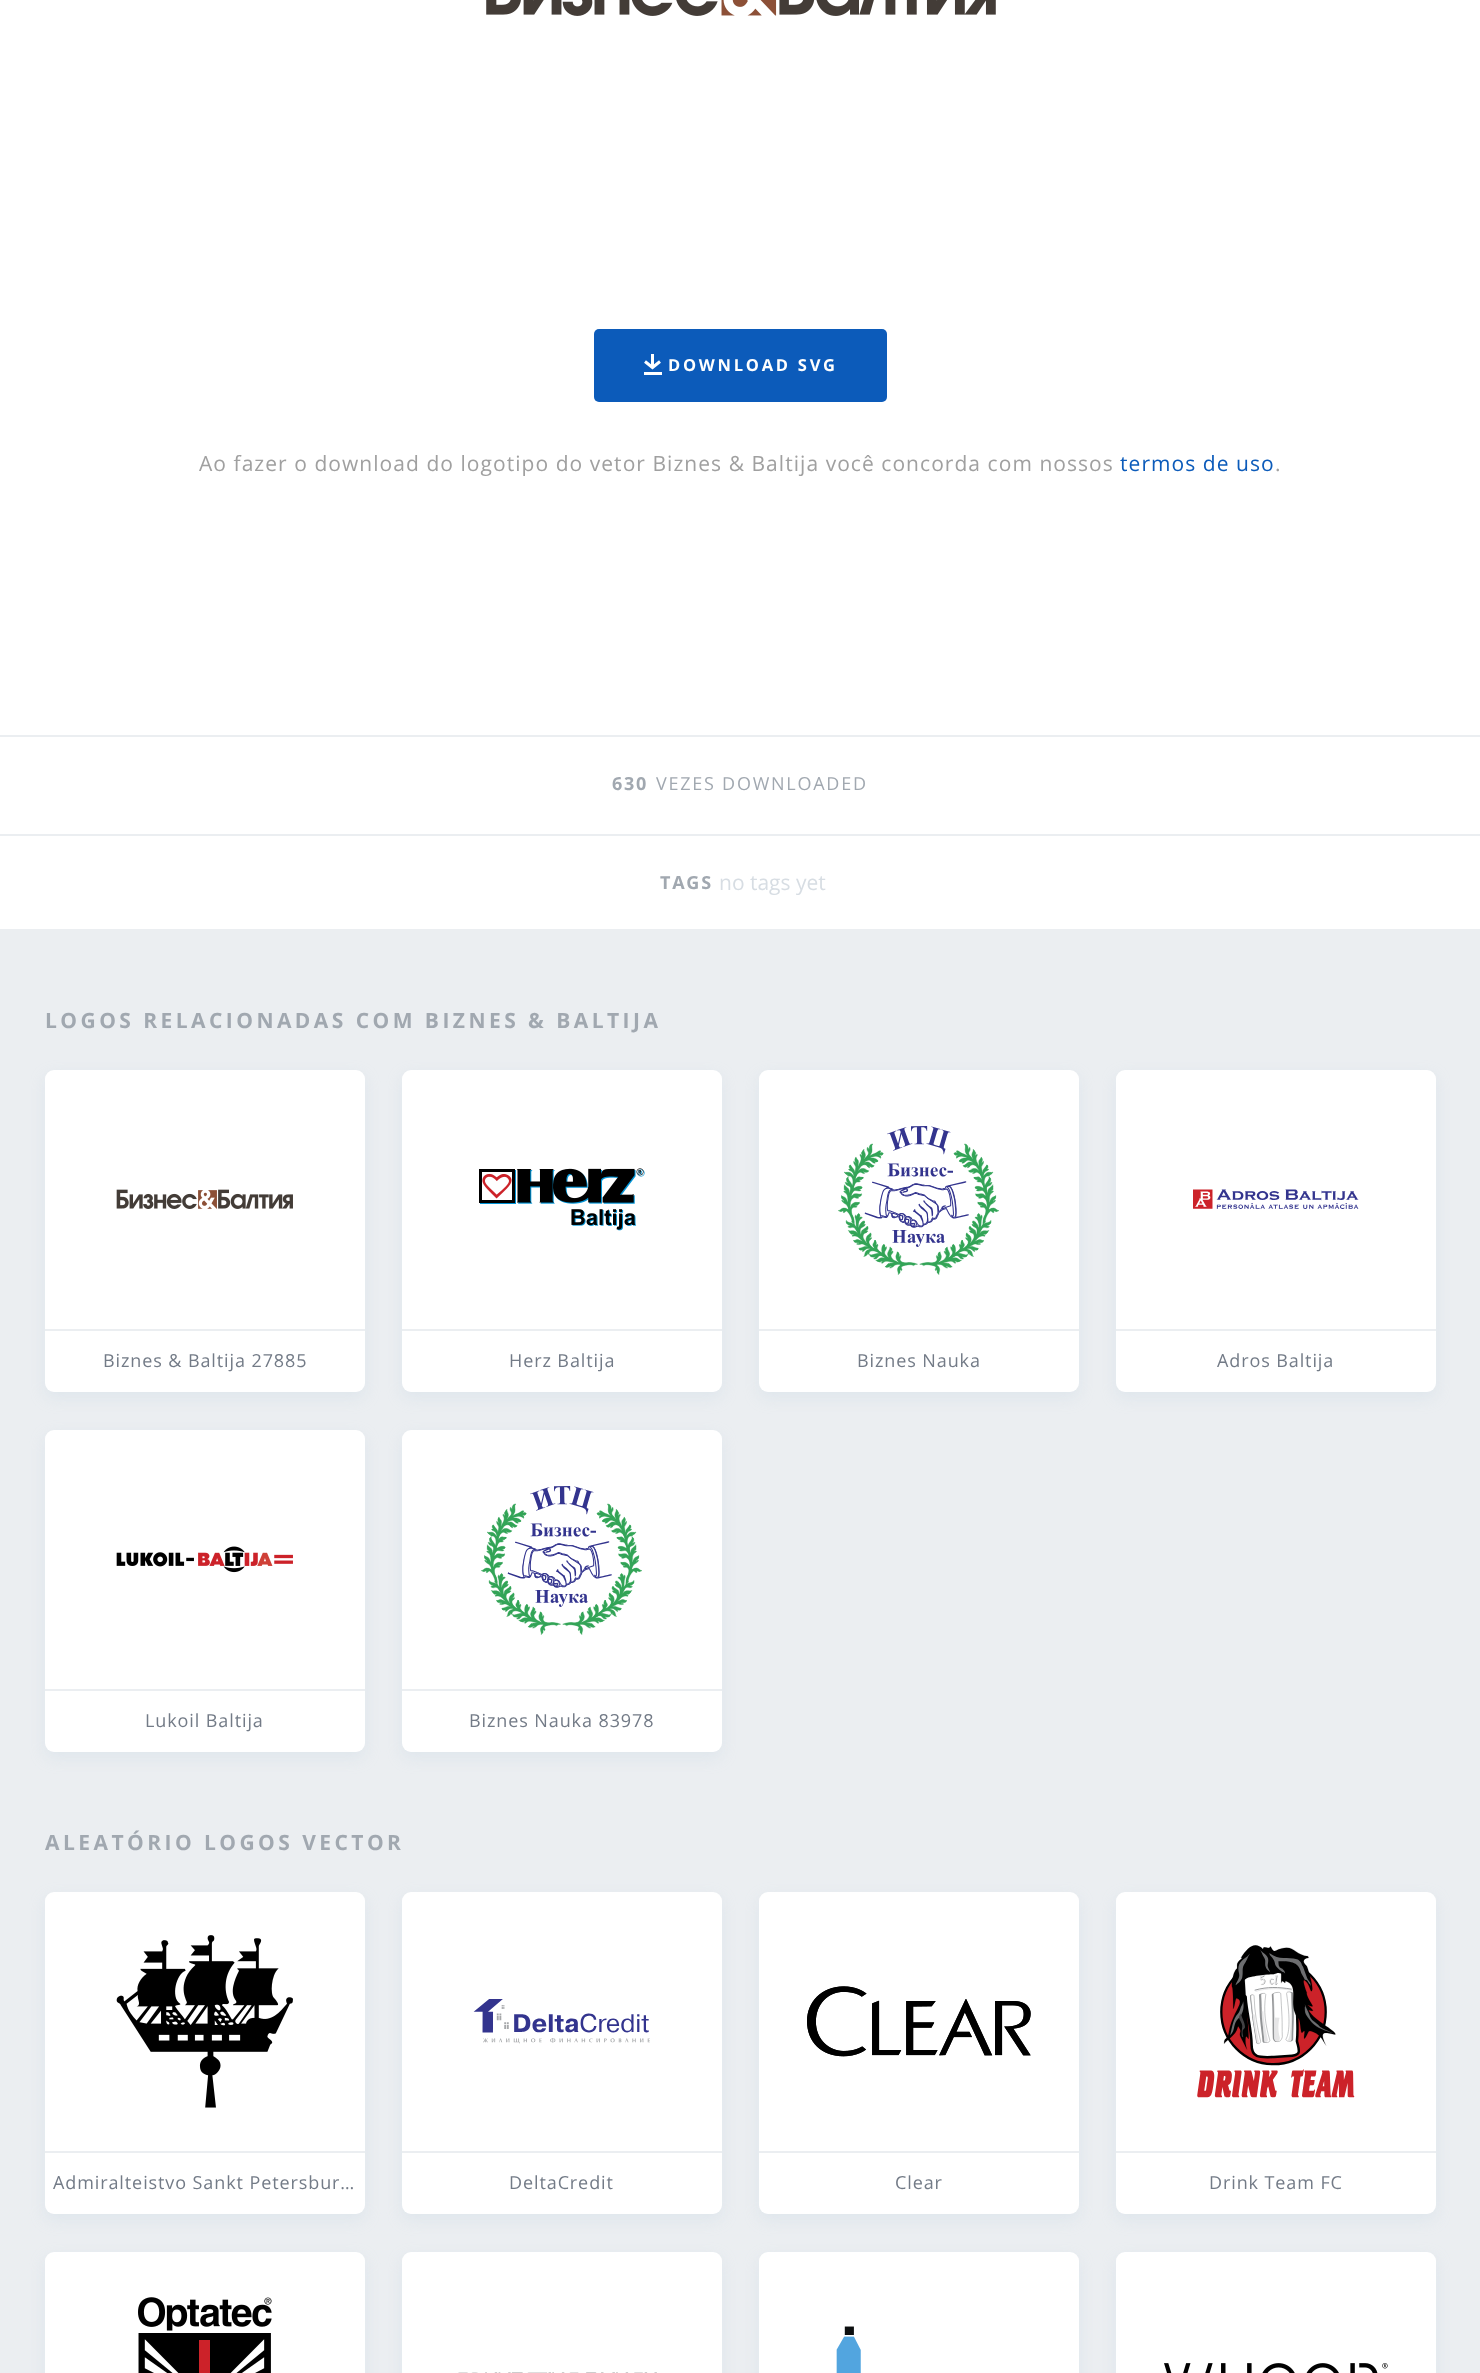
<!DOCTYPE html>
<meta charset="utf-8">
<style>body { margin: 0 } canvas { display: block }</style>
<canvas id="canvas" width="1480" height="2373"></canvas>
<img id="img1" src="images/1.png" hidden>
<img id="img2" src="images/2.png" hidden>
<img id="img3" src="images/3.png" hidden>
<img id="img4" src="images/4.png" hidden>
<img id="img5" src="images/5.png" hidden>
<img id="img6" src="images/6.png" hidden>
<img id="img7" src="images/7.png" hidden>
<img id="img8" src="images/8.png" hidden>
<img id="img9" src="images/9.png" hidden>
<img id="img10" src="images/10.png" hidden>
<img id="img11" src="images/11.png" hidden>
<img id="img12" src="images/12.png" hidden>
<img id="img13" src="images/13.png" hidden>
<img id="img14" src="images/14.png" hidden>
<img id="img15" src="images/15.png" hidden>
<script>
window.onload = function () {
    const canvas = document.getElementById('canvas');
    const context = canvas.getContext('2d');
    context.miterLimit = 4;
    context.fontKerning = 'normal';

    context.fillStyle = 'rgb(235, 238, 241)';
    context.fillRect(0, 0, 1480, 2373);
    context.fillStyle = 'rgb(255, 255, 255)';
    context.fillRect(0, 0, 1480, 929);
    context.drawImage(document.getElementById('img1'), 486, 0, 510, 16);
    context.fillStyle = 'rgb(12, 91, 186)';
    context.beginPath();
    context.roundRect(594, 329, 293, 73, 5);
    context.fill();
    context.beginPath();
    context.moveTo(660, 361.5);
    context.lineTo(652.5, 367.5);
    context.lineTo(645, 361.5);
    context.strokeStyle = 'rgb(255, 255, 255)';
    context.lineWidth = 3;
    context.stroke();
    context.fillStyle = 'rgb(255, 255, 255)';
    context.fillRect(651, 354, 3, 14);
    context.fillRect(644, 372, 18, 3);
    context.fillStyle = 'rgb(235, 238, 241)';
    context.fillRect(0, 735, 1480, 2);
    context.fillRect(0, 834, 1480, 2);
    context.fillStyle = 'rgba(189, 208, 223, 0.25)';
    context.filter = 'blur(7.5px)';
    context.beginPath();
    context.roundRect(45, 1076, 320, 322, 9);
    context.fill();
    context.filter = 'none';
    context.fillStyle = 'rgb(255, 255, 255)';
    context.beginPath();
    context.roundRect(45, 1070, 320, 322, 9);
    context.fill();
    context.drawImage(document.getElementById('img2'), 116, 1189, 177, 20);
    context.fillStyle = 'rgb(235, 238, 241)';
    context.fillRect(45, 1329, 320, 2);
    context.fillStyle = 'rgba(189, 208, 223, 0.25)';
    context.filter = 'blur(7.5px)';
    context.beginPath();
    context.roundRect(402, 1076, 320, 322, 9);
    context.fill();
    context.filter = 'none';
    context.fillStyle = 'rgb(255, 255, 255)';
    context.beginPath();
    context.roundRect(402, 1070, 320, 322, 9);
    context.fill();
    context.drawImage(document.getElementById('img3'), 479, 1168, 166, 63);
    context.fillStyle = 'rgb(235, 238, 241)';
    context.fillRect(402, 1329, 320, 2);
    context.fillStyle = 'rgba(189, 208, 223, 0.25)';
    context.filter = 'blur(7.5px)';
    context.beginPath();
    context.roundRect(759, 1076, 320, 322, 9);
    context.fill();
    context.filter = 'none';
    context.fillStyle = 'rgb(255, 255, 255)';
    context.beginPath();
    context.roundRect(759, 1070, 320, 322, 9);
    context.fill();
    context.drawImage(document.getElementById('img4'), 838, 1126, 161, 149);
    context.fillStyle = 'rgb(235, 238, 241)';
    context.fillRect(759, 1329, 320, 2);
    context.fillStyle = 'rgba(189, 208, 223, 0.25)';
    context.filter = 'blur(7.5px)';
    context.beginPath();
    context.roundRect(1116, 1076, 320, 322, 9);
    context.fill();
    context.filter = 'none';
    context.fillStyle = 'rgb(255, 255, 255)';
    context.beginPath();
    context.roundRect(1116, 1070, 320, 322, 9);
    context.fill();
    context.drawImage(document.getElementById('img5'), 1193, 1189, 166, 20);
    context.fillStyle = 'rgb(235, 238, 241)';
    context.fillRect(1116, 1329, 320, 2);
    context.fillStyle = 'rgba(189, 208, 223, 0.25)';
    context.filter = 'blur(7.5px)';
    context.beginPath();
    context.roundRect(45, 1436, 320, 322, 9);
    context.fill();
    context.filter = 'none';
    context.fillStyle = 'rgb(255, 255, 255)';
    context.beginPath();
    context.roundRect(45, 1430, 320, 322, 9);
    context.fill();
    context.drawImage(document.getElementById('img6'), 116, 1546, 177, 27);
    context.fillStyle = 'rgb(235, 238, 241)';
    context.fillRect(45, 1689, 320, 2);
    context.fillStyle = 'rgba(189, 208, 223, 0.25)';
    context.filter = 'blur(7.5px)';
    context.beginPath();
    context.roundRect(402, 1436, 320, 322, 9);
    context.fill();
    context.filter = 'none';
    context.fillStyle = 'rgb(255, 255, 255)';
    context.beginPath();
    context.roundRect(402, 1430, 320, 322, 9);
    context.fill();
    context.drawImage(document.getElementById('img7'), 481, 1486, 161, 149);
    context.fillStyle = 'rgb(235, 238, 241)';
    context.fillRect(402, 1689, 320, 2);
    context.fillStyle = 'rgba(189, 208, 223, 0.25)';
    context.filter = 'blur(7.5px)';
    context.beginPath();
    context.roundRect(45, 1898, 320, 322, 9);
    context.fill();
    context.filter = 'none';
    context.fillStyle = 'rgb(255, 255, 255)';
    context.beginPath();
    context.roundRect(45, 1892, 320, 322, 9);
    context.fill();
    context.drawImage(document.getElementById('img8'), 116, 1935, 177, 173);
    context.fillStyle = 'rgb(235, 238, 241)';
    context.fillRect(45, 2151, 320, 2);
    context.fillStyle = 'rgba(189, 208, 223, 0.25)';
    context.filter = 'blur(7.5px)';
    context.beginPath();
    context.roundRect(402, 1898, 320, 322, 9);
    context.fill();
    context.filter = 'none';
    context.fillStyle = 'rgb(255, 255, 255)';
    context.beginPath();
    context.roundRect(402, 1892, 320, 322, 9);
    context.fill();
    context.drawImage(document.getElementById('img9'), 473, 1999, 177, 45);
    context.fillStyle = 'rgb(235, 238, 241)';
    context.fillRect(402, 2151, 320, 2);
    context.fillStyle = 'rgba(189, 208, 223, 0.25)';
    context.filter = 'blur(7.5px)';
    context.beginPath();
    context.roundRect(759, 1898, 320, 322, 9);
    context.fill();
    context.filter = 'none';
    context.fillStyle = 'rgb(255, 255, 255)';
    context.beginPath();
    context.roundRect(759, 1892, 320, 322, 9);
    context.fill();
    context.drawImage(document.getElementById('img10'), 807, 1986, 224, 71);
    context.fillStyle = 'rgb(235, 238, 241)';
    context.fillRect(759, 2151, 320, 2);
    context.fillStyle = 'rgba(189, 208, 223, 0.25)';
    context.filter = 'blur(7.5px)';
    context.beginPath();
    context.roundRect(1116, 1898, 320, 322, 9);
    context.fill();
    context.filter = 'none';
    context.fillStyle = 'rgb(255, 255, 255)';
    context.beginPath();
    context.roundRect(1116, 1892, 320, 322, 9);
    context.fill();
    context.drawImage(document.getElementById('img11'), 1197, 1945, 158, 153);
    context.fillStyle = 'rgb(235, 238, 241)';
    context.fillRect(1116, 2151, 320, 2);
    context.fillStyle = 'rgba(189, 208, 223, 0.25)';
    context.filter = 'blur(7.5px)';
    context.beginPath();
    context.roundRect(45, 2258, 320, 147, 9);
    context.fill();
    context.filter = 'none';
    context.fillStyle = 'rgb(255, 255, 255)';
    context.beginPath();
    context.roundRect(45, 2252, 320, 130, 9);
    context.fill();
    context.drawImage(document.getElementById('img12'), 138, 2297, 134, 76);
    context.fillStyle = 'rgba(189, 208, 223, 0.25)';
    context.filter = 'blur(7.5px)';
    context.beginPath();
    context.roundRect(402, 2258, 320, 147, 9);
    context.fill();
    context.filter = 'none';
    context.fillStyle = 'rgb(255, 255, 255)';
    context.beginPath();
    context.roundRect(402, 2252, 320, 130, 9);
    context.fill();
    context.drawImage(document.getElementById('img13'), 458, 2372, 199, 1);
    context.fillStyle = 'rgba(189, 208, 223, 0.25)';
    context.filter = 'blur(7.5px)';
    context.beginPath();
    context.roundRect(759, 2258, 320, 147, 9);
    context.fill();
    context.filter = 'none';
    context.fillStyle = 'rgb(255, 255, 255)';
    context.beginPath();
    context.roundRect(759, 2252, 320, 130, 9);
    context.fill();
    context.drawImage(document.getElementById('img14'), 836, 2326, 25, 47);
    context.fillStyle = 'rgba(189, 208, 223, 0.25)';
    context.filter = 'blur(7.5px)';
    context.beginPath();
    context.roundRect(1116, 2258, 320, 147, 9);
    context.fill();
    context.filter = 'none';
    context.fillStyle = 'rgb(255, 255, 255)';
    context.beginPath();
    context.roundRect(1116, 2252, 320, 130, 9);
    context.fill();
    context.drawImage(document.getElementById('img15'), 1164, 2363, 224, 10);
    context.letterSpacing = '2.75px';
    context.font = 'bold 16.5px Open Sans';
    context.fillText('DOWNLOAD SVG', 668, 371);
    context.letterSpacing = '1.05px';
    context.font = '21px Open Sans';
    context.fillStyle = 'rgb(160, 160, 160)';
    context.fillText('Ao fazer o download do logotipo do vetor Biznes & Baltija você concorda com nossos', 199, 471);
    context.fillStyle = 'rgb(12, 91, 186)';
    context.fillText('termos de uso', 1120, 471);
    context.fillStyle = 'rgb(160, 160, 160)';
    context.fillText('.', 1275, 471);
    context.letterSpacing = '1.75px';
    context.font = 'bold 18px Open Sans';
    context.fillStyle = 'rgb(161, 168, 176)';
    context.fillText('630', 612, 790);
    context.font = '18px Open Sans';
    context.fillText('VEZES DOWNLOADED', 656, 790);
    context.font = 'bold 18px Open Sans';
    context.fillText('TAGS', 660, 889);
    context.letterSpacing = '0px';
    context.font = '21px Open Sans';
    context.fillStyle = 'rgb(215, 221, 227)';
    context.fillText('no tags yet', 719, 890);
    context.letterSpacing = '3.45px';
    context.font = 'bold 21px Open Sans';
    context.fillStyle = 'rgb(161, 168, 176)';
    context.fillText('LOGOS RELACIONADAS COM BIZNES & BALTIJA', 45, 1028);
    context.letterSpacing = '0.9px';
    context.font = '18px Open Sans';
    context.fillStyle = 'rgb(115, 123, 135)';
    context.fillText('Biznes & Baltija 27885', 103, 1367);
    context.fillText('Herz Baltija', 509, 1367);
    context.fillText('Biznes Nauka', 857, 1367);
    context.fillText('Adros Baltija', 1217, 1367);
    context.fillText('Lukoil Baltija', 145, 1727);
    context.fillText('Biznes Nauka 83978', 469, 1727);
    context.letterSpacing = '3.45px';
    context.font = 'bold 21px Open Sans';
    context.fillStyle = 'rgb(161, 168, 176)';
    context.fillText('ALEATÓRIO LOGOS VECTOR', 45, 1850);
    context.letterSpacing = '0.9px';
    context.font = '18px Open Sans';
    context.fillStyle = 'rgb(115, 123, 135)';
    context.fillText('Admiralteistvo Sankt Petersbur…', 53, 2189);
    context.fillText('DeltaCredit', 509, 2189);
    context.fillText('Clear', 895, 2189);
    context.fillText('Drink Team FC', 1209, 2189);
};
</script>
